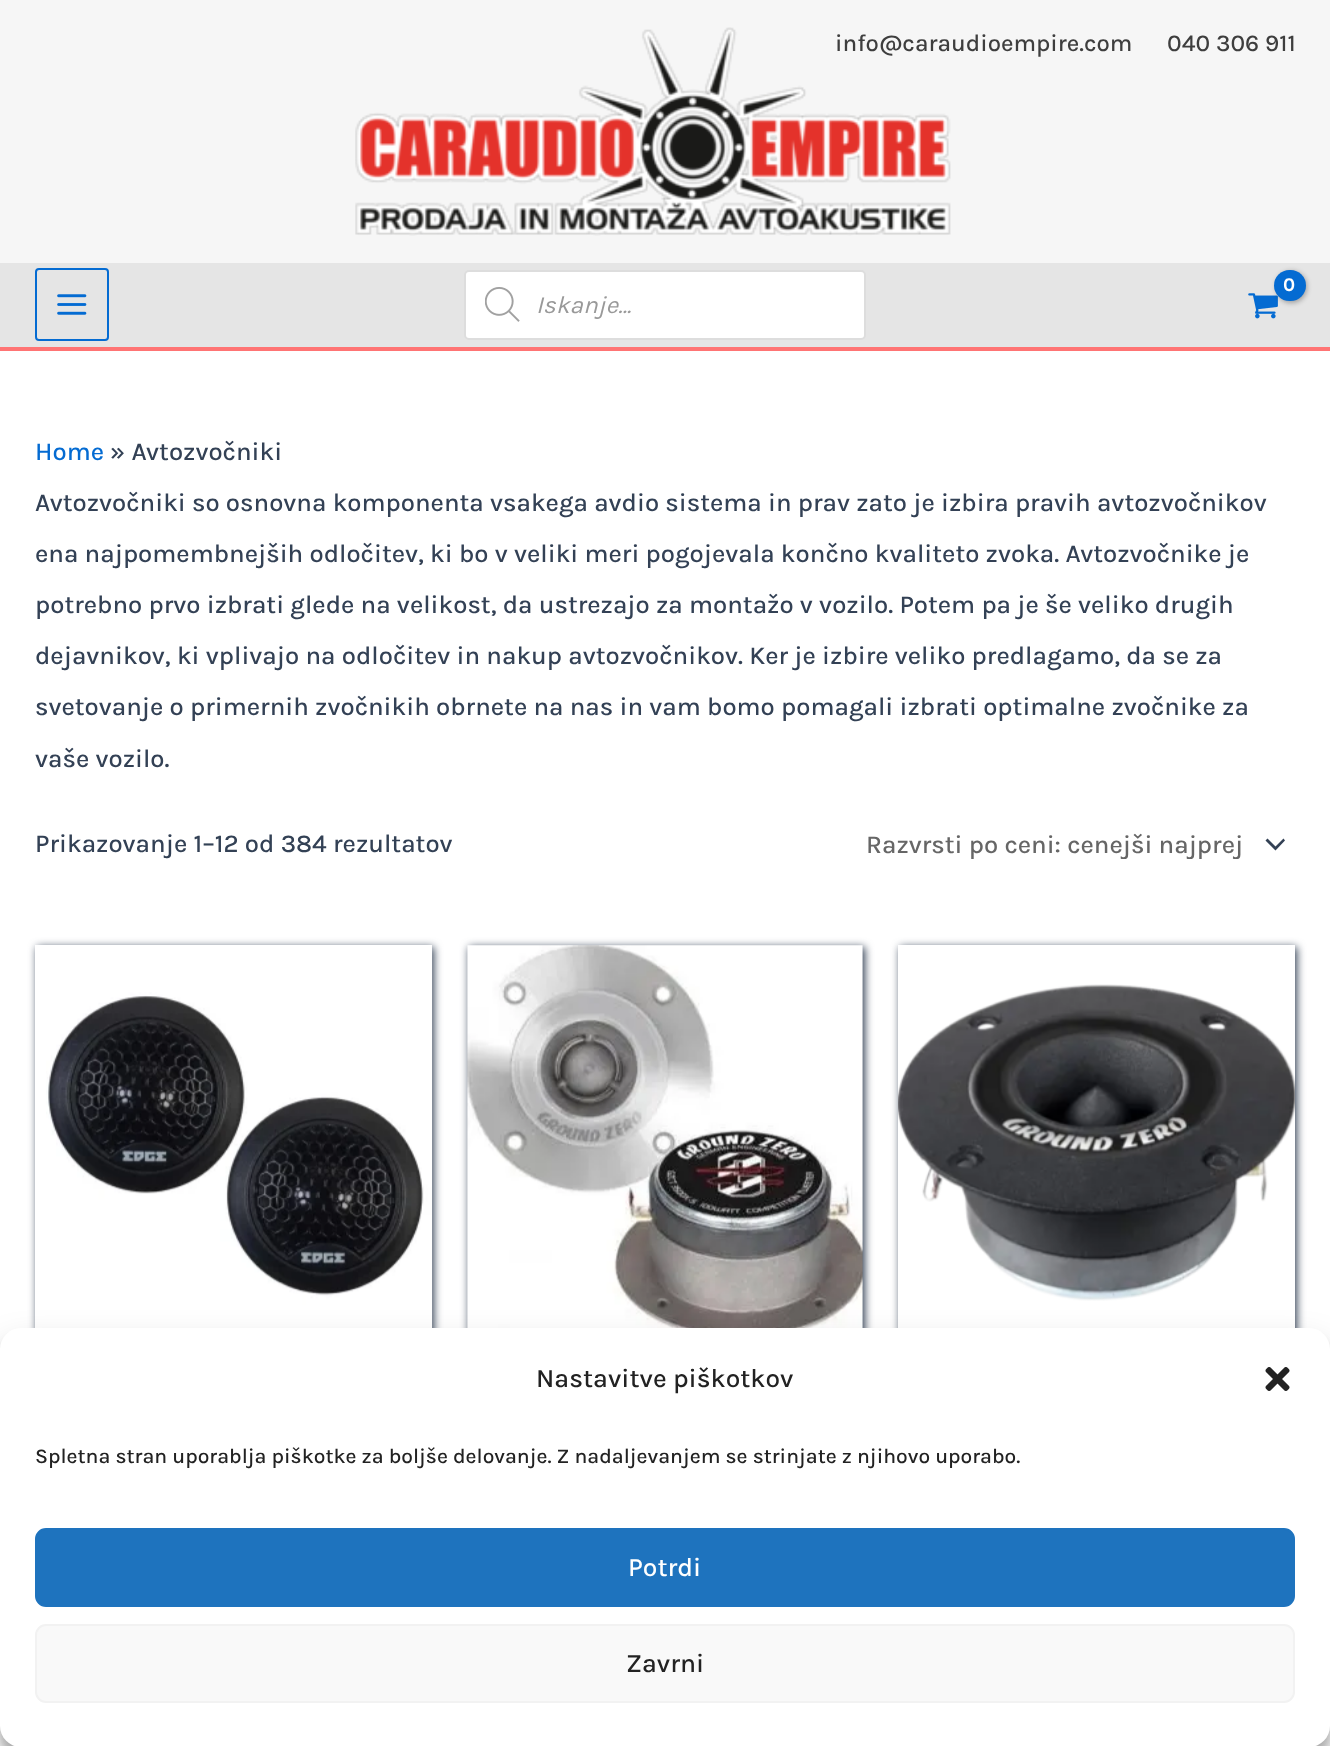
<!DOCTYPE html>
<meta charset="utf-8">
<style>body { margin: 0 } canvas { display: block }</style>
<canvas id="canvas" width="1330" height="1746"></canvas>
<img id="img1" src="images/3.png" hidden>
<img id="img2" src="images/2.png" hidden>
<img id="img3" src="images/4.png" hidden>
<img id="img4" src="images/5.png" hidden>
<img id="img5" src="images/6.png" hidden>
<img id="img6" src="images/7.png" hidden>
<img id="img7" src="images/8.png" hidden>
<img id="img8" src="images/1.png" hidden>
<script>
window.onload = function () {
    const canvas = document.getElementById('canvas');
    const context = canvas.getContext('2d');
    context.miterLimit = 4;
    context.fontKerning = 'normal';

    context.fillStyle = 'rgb(255, 255, 255)';
    context.fillRect(0, 0, 1330, 1746);
    context.fillStyle = 'rgb(229, 229, 229)';
    context.fillRect(0, 263, 1330, 84);
    context.drawImage(document.getElementById('img1'), 1248, 293, 30, 26);
    context.fillStyle = 'rgba(0, 0, 0, 0.3)';
    context.filter = 'blur(2.5px)';
    context.beginPath();
    context.roundRect(1276, 271, 31, 32, 15.5);
    context.fill();
    context.filter = 'none';
    context.fillStyle = 'rgb(246, 246, 246)';
    context.fillRect(0, 88, 1330, 175);
    context.fillRect(0, 0, 1330, 88);
    context.fillStyle = 'rgb(255, 116, 116)';
    context.fillRect(0, 347, 1330, 4);
    context.beginPath();
    context.roundRect(36, 269, 72, 71, 3);
    context.strokeStyle = 'rgb(4, 107, 210)';
    context.lineWidth = 2;
    context.stroke();
    context.drawImage(document.getElementById('img2'), 57, 294, 30, 21);
    context.fillStyle = 'rgb(4, 107, 210)';
    context.beginPath();
    context.roundRect(1274, 270, 32, 31, 15.5);
    context.fill();
    context.fillStyle = 'rgb(255, 255, 255)';
    context.beginPath();
    context.roundRect(465, 271, 400, 68, 4);
    context.fill();
    context.strokeStyle = 'rgb(221, 221, 221)';
    context.stroke();
    context.drawImage(document.getElementById('img3'), 485, 287, 35, 35);
    context.fillStyle = 'rgb(51, 65, 85)';
    context.beginPath();
    context.moveTo(1265.5, 840.5);
    context.lineTo(1275.5, 850.5);
    context.lineTo(1285, 840.5);
    context.lineTo(1283.5, 838.5);
    context.lineTo(1275.5, 846.5);
    context.lineTo(1267.5, 838.5);
    context.closePath();
    context.fill();
    context.save();
    context.beginPath();
    context.moveTo(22, 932);
    context.lineTo(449, 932);
    context.lineTo(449, 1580);
    context.lineTo(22, 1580);
    context.closePath();
    context.moveTo(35, 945);
    context.lineTo(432, 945);
    context.lineTo(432, 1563);
    context.lineTo(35, 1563);
    context.closePath();
    context.clip('evenodd');
    context.filter = 'blur(4.5px)';
    context.beginPath();
    context.rect(37, 947, 397, 618);
    context.fill();
    context.filter = 'none';
    context.restore();
    context.drawImage(document.getElementById('img4'), 46, 949, 387, 379);
    context.filter = 'blur(4.5px)';
    context.beginPath();
    context.rect(469, 947, 396, 618);
    context.fill();
    context.filter = 'none';
    context.drawImage(document.getElementById('img5'), 467, 945, 396, 383);
    context.save();
    context.beginPath();
    context.moveTo(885, 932);
    context.lineTo(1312, 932);
    context.lineTo(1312, 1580);
    context.lineTo(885, 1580);
    context.closePath();
    context.moveTo(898, 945);
    context.lineTo(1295, 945);
    context.lineTo(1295, 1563);
    context.lineTo(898, 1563);
    context.closePath();
    context.clip('evenodd');
    context.filter = 'blur(4.5px)';
    context.beginPath();
    context.rect(900, 947, 397, 618);
    context.fill();
    context.filter = 'none';
    context.restore();
    context.drawImage(document.getElementById('img6'), 898, 984, 397, 317);
    context.fillStyle = 'rgba(0, 0, 0, 0.23)';
    context.filter = 'blur(5px)';
    context.beginPath();
    context.roundRect(0, 1339, 1330, 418, 21);
    context.fill();
    context.filter = 'none';
    context.fillStyle = 'rgba(0, 0, 0, 0.19)';
    context.filter = 'blur(17.5px)';
    context.beginPath();
    context.roundRect(0, 1346, 1330, 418, 21);
    context.fill();
    context.filter = 'none';
    context.fillStyle = 'rgb(255, 255, 255)';
    context.beginPath();
    context.roundRect(0, 1328, 1330, 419, 21);
    context.fill();
    context.drawImage(document.getElementById('img7'), 1265, 1367, 25, 24);
    context.fillStyle = 'rgb(30, 115, 190)';
    context.beginPath();
    context.roundRect(36, 1529, 1258, 77, 10);
    context.fill();
    context.strokeStyle = 'rgb(30, 115, 190)';
    context.stroke();
    context.fillStyle = 'rgb(249, 249, 249)';
    context.beginPath();
    context.roundRect(36, 1625, 1258, 77, 10);
    context.fill();
    context.strokeStyle = 'rgb(242, 242, 242)';
    context.stroke();
    context.font = '500 24px Karla';
    context.fillStyle = 'rgb(62, 62, 62)';
    context.fillText('info@caraudioempire.com', 835, 51);
    context.drawImage(document.getElementById('img8'), 355, 27, 596, 209);
    context.fillText('040 306 911', 1167, 51);
    context.letterSpacing = '-1px';
    context.font = 'bold 19px Karla';
    context.fillStyle = 'rgb(255, 255, 255)';
    context.fillText('0', 1283, 291);
    context.letterSpacing = '0px';
    context.font = 'italic 24.5px Karla';
    context.fillStyle = 'rgb(153, 153, 153)';
    context.fillText('Iskanje...', 536, 313);
    context.font = '500 25.55px Karla';
    context.fillStyle = 'rgb(4, 107, 210)';
    context.fillText('Home', 35, 460);
    context.fillStyle = 'rgb(51, 65, 85)';
    context.fillText('» Avtozvočniki', 110, 460);
    context.fillText('Avtozvočniki so osnovna komponenta vsakega avdio sistema in prav zato je izbira pravih avtozvočnikov', 35, 511);
    context.fillText('ena najpomembnejših odločitev, ki bo v veliki meri pogojevala končno kvaliteto zvoka. Avtozvočnike je', 35, 562);
    context.fillText('potrebno prvo izbrati glede na velikost, da ustrezajo za montažo v vozilo. Potem pa je še veliko drugih', 35, 613);
    context.fillText('dejavnikov, ki vplivajo na odločitev in nakup avtozvočnikov. Ker je izbire veliko predlagamo, da se za', 35, 664);
    context.fillText('svetovanje o primernih zvočnikih obrnete na nas in vam bomo pomagali izbrati optimalne zvočnike za', 35, 715);
    context.fillText('vaše vozilo.', 35, 767);
    context.fillText('Prikazovanje 1–12 od 384 rezultatov', 35, 852);
    context.save();
    context.beginPath();
    context.rect(866, 830, 378, 29);
    context.clip();
    context.fillStyle = 'rgb(102, 102, 102)';
    context.fillText('Razvrsti po ceni: cenejši najprej', 866, 853);
    context.restore();
    context.font = '500 26.25px Karla';
    context.fillStyle = 'rgb(34, 34, 34)';
    context.fillText('Nastavitve piškotkov', 536, 1387);
    context.font = '500 21px Karla';
    context.fillText('Spletna stran uporablja piškotke za boljše delovanje. Z nadaljevanjem se strinjate z njihovo uporabo.', 35, 1463);
    context.font = '500 26.25px Karla';
    context.fillStyle = 'rgb(255, 255, 255)';
    context.fillText('Potrdi', 628, 1576);
    context.fillStyle = 'rgb(34, 34, 34)';
    context.fillText('Zavrni', 626, 1672);
};
</script>
